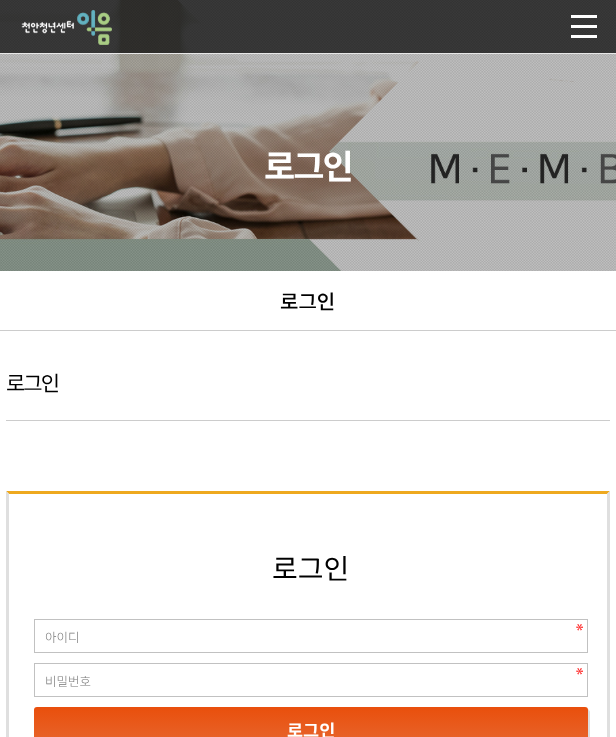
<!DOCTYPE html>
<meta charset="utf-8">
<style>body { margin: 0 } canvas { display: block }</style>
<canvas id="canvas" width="616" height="737"></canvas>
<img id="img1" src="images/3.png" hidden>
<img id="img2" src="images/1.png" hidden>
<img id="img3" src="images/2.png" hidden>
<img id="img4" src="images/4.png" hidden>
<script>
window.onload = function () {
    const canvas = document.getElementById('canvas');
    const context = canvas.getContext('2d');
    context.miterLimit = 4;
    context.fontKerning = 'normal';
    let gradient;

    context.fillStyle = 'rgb(255, 255, 255)';
    context.fillRect(0, 0, 616, 737);
    context.drawImage(document.getElementById('img1'), 0, 0, 616, 271);
    context.fillStyle = 'rgba(0, 0, 0, 0.7)';
    context.fillRect(0, 0, 616, 53);
    context.fillStyle = 'rgb(232, 232, 232)';
    context.fillRect(0, 53, 616, 1);
    context.drawImage(document.getElementById('img2'), 21, 10, 91, 35);
    context.drawImage(document.getElementById('img3'), 571, 15, 26, 23);
    context.fillStyle = 'rgb(204, 204, 204)';
    context.fillRect(0, 330, 616, 1);
    context.fillRect(6, 420, 604, 1);
    context.fillStyle = 'rgb(238, 169, 31)';
    context.beginPath();
    context.moveTo(6, 491);
    context.lineTo(610, 491);
    context.lineTo(607, 494);
    context.lineTo(9, 494);
    context.closePath();
    context.fill();
    context.fillStyle = 'rgb(223, 223, 223)';
    context.beginPath();
    context.moveTo(610, 491);
    context.lineTo(610, 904);
    context.lineTo(607, 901);
    context.lineTo(607, 494);
    context.closePath();
    context.fill();
    context.beginPath();
    context.moveTo(6, 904);
    context.lineTo(6, 491);
    context.lineTo(9, 494);
    context.lineTo(9, 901);
    context.closePath();
    context.fill();
    context.drawImage(document.getElementById('img4'), 576, 624, 7, 7);
    context.strokeStyle = 'rgb(193, 193, 193)';
    context.strokeRect(34.5, 619.5, 553, 33);
    context.drawImage(document.getElementById('img4'), 576, 668, 7, 7);
    context.strokeRect(34.5, 663.5, 553, 33);
    context.fillStyle = 'rgb(221, 221, 221)';
    context.beginPath();
    context.moveTo(36, 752);
    context.bezierCurveTo(37, 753, 38, 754, 39, 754);
    context.lineTo(587, 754);
    context.bezierCurveTo(589, 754, 590, 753, 590, 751);
    context.lineTo(590, 712);
    context.bezierCurveTo(590, 711, 589, 710, 588, 709);
    context.lineTo(588, 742);
    context.bezierCurveTo(588, 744, 590, 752, 585, 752);
    context.closePath();
    context.fill();
    gradient = context.createLinearGradient(311, 707, 311, 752);
    gradient.addColorStop(0, 'rgb(233, 79, 12)');
    gradient.addColorStop(1, 'rgb(231, 106, 52)');
    context.fillStyle = gradient;
    context.beginPath();
    context.roundRect(34, 707, 554, 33, 3);
    context.fill();
    context.letterSpacing = '-2px';
    context.font = 'bold 34px Noto Sans KR';
    context.fillStyle = 'rgb(255, 255, 255)';
    context.fillText('로그인', 264, 179);
    context.letterSpacing = '0px';
    context.font = '500 20px Noto Sans KR';
    context.fillStyle = 'rgb(0, 0, 0)';
    context.fillText('로그인', 280, 309);
    context.letterSpacing = '-2px';
    context.font = '21px Noto Sans KR';
    context.fillText('로그인', 6, 391);
    context.letterSpacing = '0px';
    context.font = '28px Noto Sans KR';
    context.fillText('로그인', 272, 579);
    context.font = '300 12.5px Noto Sans KR';
    context.fillStyle = 'rgb(117, 117, 117)';
    context.fillText('아이디', 45, 642);
    context.fillText('비밀번호', 45, 686);
    context.font = 'bold 17.5px Noto Sans KR';
    context.fillStyle = 'rgb(255, 255, 255)';
    context.fillText('로그인', 287, 737);
};
</script>
